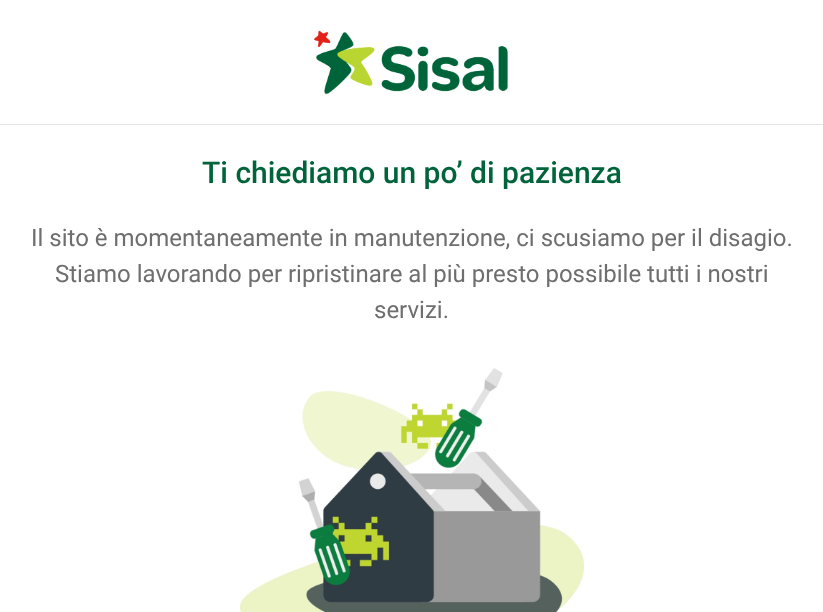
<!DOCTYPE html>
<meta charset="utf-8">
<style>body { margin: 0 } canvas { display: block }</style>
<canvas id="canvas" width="823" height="612"></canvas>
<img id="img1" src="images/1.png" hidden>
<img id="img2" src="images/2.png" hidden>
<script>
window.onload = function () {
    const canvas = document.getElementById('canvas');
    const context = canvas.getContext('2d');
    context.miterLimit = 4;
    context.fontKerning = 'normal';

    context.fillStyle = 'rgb(255, 255, 255)';
    context.fillRect(0, 0, 823, 612);
    context.fillStyle = 'rgb(229, 229, 229)';
    context.fillRect(0, 124, 823, 1);
    context.drawImage(document.getElementById('img1'), 313, 30, 195, 65);
    context.drawImage(document.getElementById('img2'), 240, 368, 344, 244);
    context.font = '500 30px Roboto';
    context.fillStyle = 'rgb(0, 100, 59)';
    context.fillText('Ti chiediamo un po’ di pazienza', 202, 183);
    context.font = '24px Roboto';
    context.fillStyle = 'rgb(110, 110, 110)';
    context.fillText('Il sito è momentaneamente in manutenzione, ci scusiamo per il disagio.', 31, 246);
    context.fillText('Stiamo lavorando per ripristinare al più presto possibile tutti i nostri', 55, 282);
    context.fillText('servizi.', 374, 318);
};
</script>
